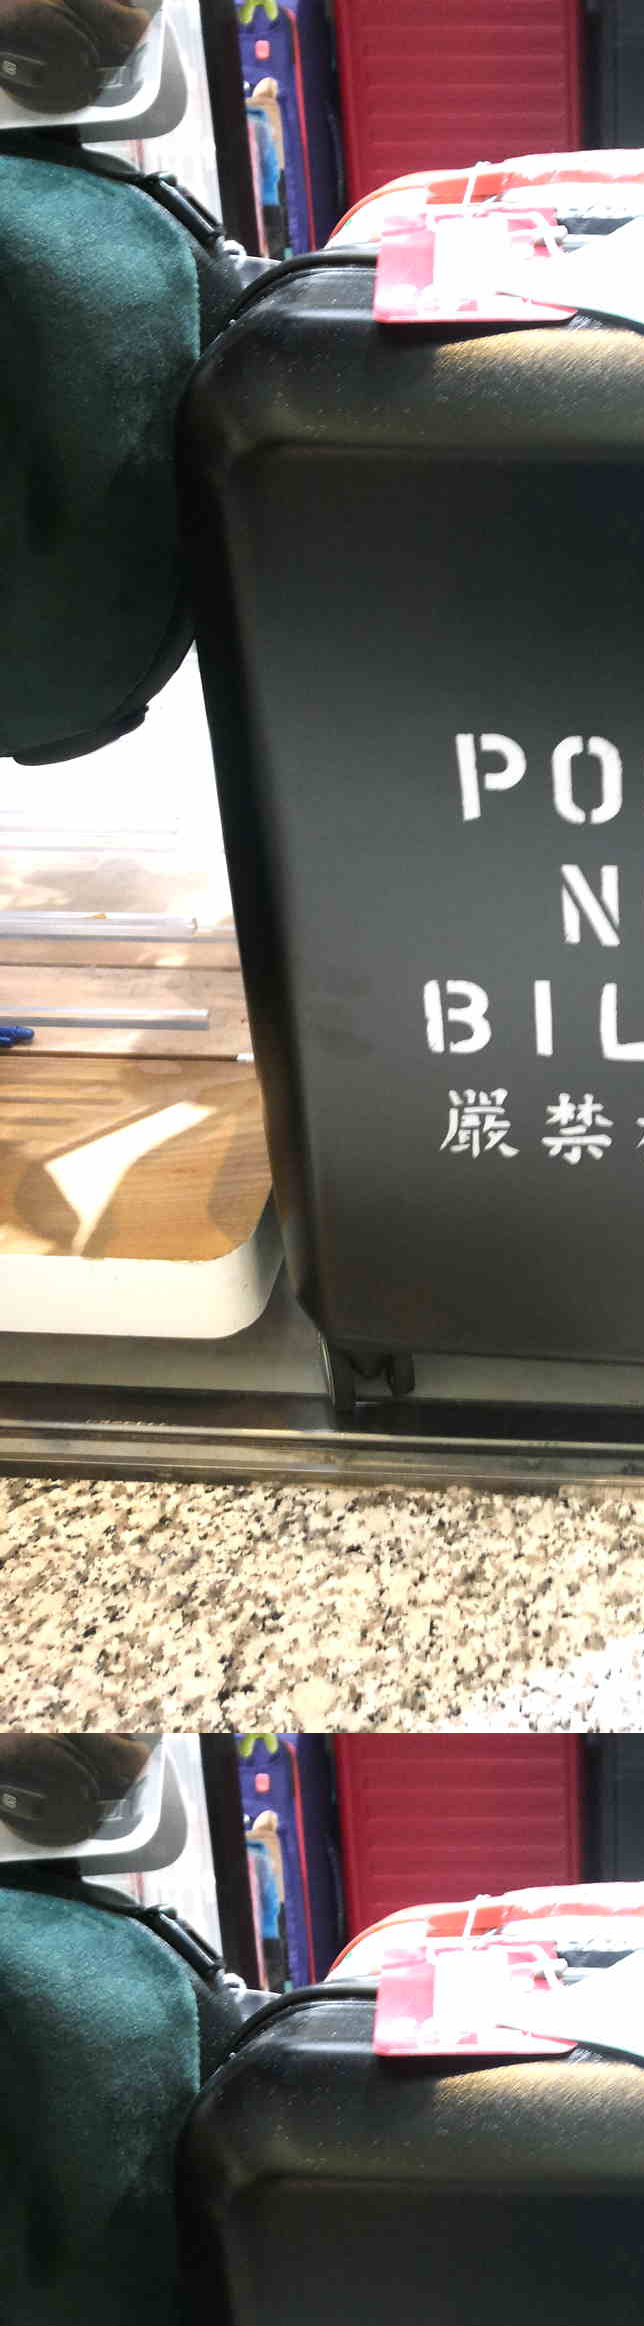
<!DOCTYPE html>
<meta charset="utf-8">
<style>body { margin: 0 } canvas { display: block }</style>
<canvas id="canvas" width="644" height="2326"></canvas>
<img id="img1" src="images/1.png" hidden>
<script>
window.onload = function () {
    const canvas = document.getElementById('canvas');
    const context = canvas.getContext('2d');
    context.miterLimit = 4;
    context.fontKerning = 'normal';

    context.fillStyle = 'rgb(255, 255, 255)';
    context.fillRect(0, 0, 644, 2326);
    context.drawImage(document.getElementById('img1'), 0, 0, 644, 2326);
};
</script>
